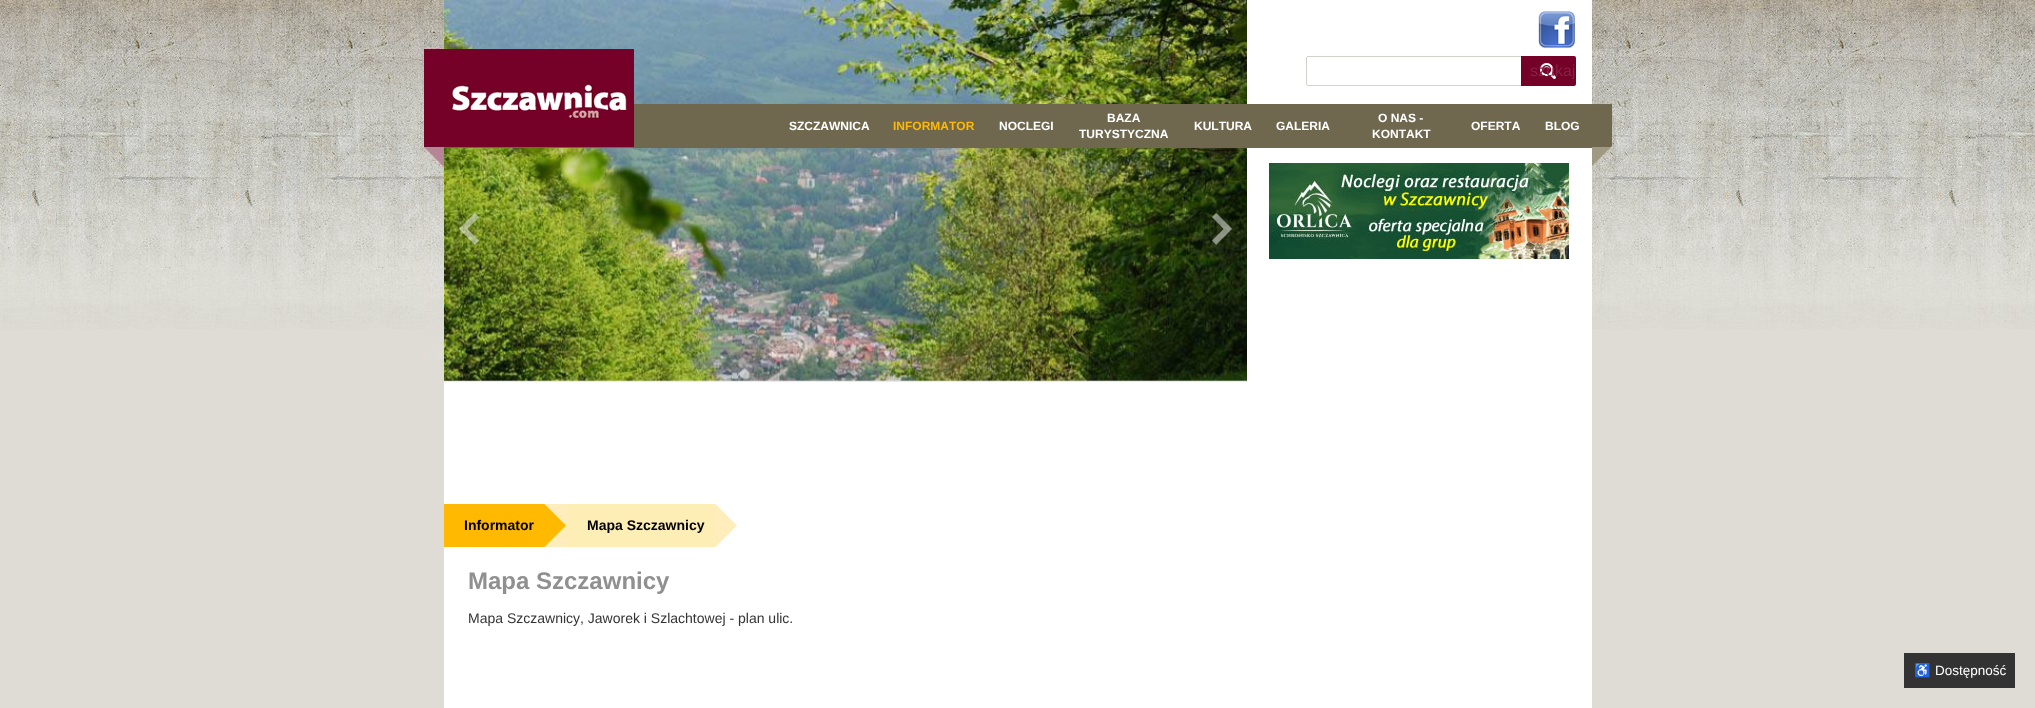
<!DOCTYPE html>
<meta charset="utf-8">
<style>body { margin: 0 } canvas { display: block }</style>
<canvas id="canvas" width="2035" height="708"></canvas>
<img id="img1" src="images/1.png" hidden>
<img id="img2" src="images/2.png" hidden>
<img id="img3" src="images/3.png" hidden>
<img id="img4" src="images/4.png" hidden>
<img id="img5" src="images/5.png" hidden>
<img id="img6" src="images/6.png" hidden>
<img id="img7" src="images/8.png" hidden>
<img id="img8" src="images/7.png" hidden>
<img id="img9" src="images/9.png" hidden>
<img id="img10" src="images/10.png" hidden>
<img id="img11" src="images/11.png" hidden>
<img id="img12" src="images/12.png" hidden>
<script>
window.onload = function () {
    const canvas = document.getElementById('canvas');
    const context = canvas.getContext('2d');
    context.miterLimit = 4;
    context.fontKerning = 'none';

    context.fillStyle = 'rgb(222, 220, 212)';
    context.fillRect(0, 0, 2035, 708);
    context.drawImage(document.getElementById('img1'), 0, 0, 2035, 329);
    context.fillStyle = 'rgb(255, 255, 255)';
    context.fillRect(1247, 0, 345, 708);
    context.drawImage(document.getElementById('img2'), 1538, 11, 37, 38);
    context.fillStyle = 'rgb(211, 211, 203)';
    context.fillRect(1307, 56, 214, 1);
    context.fillRect(1307, 85, 214, 1);
    context.fillRect(1306, 57, 1, 28);
    context.fillStyle = 'rgb(117, 1, 40)';
    context.beginPath();
    context.roundRect(1521, 56, 55, 30, [0, 2, 2, 0]);
    context.fill();
    context.drawImage(document.getElementById('img3'), 1540, 63, 16, 16);
    context.drawImage(document.getElementById('img4'), 1592, 104, 20, 62);
    context.drawImage(document.getElementById('img5'), 1269, 163, 300, 96);
    context.fillStyle = 'rgb(255, 255, 255)';
    context.fillRect(444, 380, 803, 328);
    context.drawImage(document.getElementById('img6'), 424, 0, 20, 360);
    context.drawImage(document.getElementById('img7'), 444, 0, 803, 381);
    context.fillStyle = 'rgb(111, 104, 78)';
    context.fillRect(444, 104, 1148, 44);
    context.drawImage(document.getElementById('img8'), 444, 49, 190, 98);
    context.drawImage(document.getElementById('img9'), 459, 212, 20, 33);
    context.drawImage(document.getElementById('img10'), 1212, 212, 20, 33);
    context.fillStyle = 'rgb(234, 234, 234)';
    context.fillRect(444, 381, 803, 1);
    context.fillStyle = 'rgb(255, 185, 0)';
    context.fillRect(444, 504, 100, 43);
    context.drawImage(document.getElementById('img11'), 544, 504, 23, 43);
    context.fillStyle = 'rgb(253, 238, 181)';
    context.fillRect(567, 504, 147, 43);
    context.drawImage(document.getElementById('img12'), 714, 504, 23, 43);
    context.fillStyle = 'rgb(51, 51, 51)';
    context.fillRect(1904, 653, 111, 35);
    context.font = '16px Liberation Sans';
    context.fillStyle = 'rgb(135, 34, 68)';
    context.fillText('szukaj', 1530, 76);
    context.font = 'bold 12px Liberation Sans';
    context.fillStyle = 'rgb(255, 255, 255)';
    context.fillText('SZCZAWNICA', 789, 130);
    context.fillStyle = 'rgb(255, 185, 0)';
    context.fillText('INFORMATOR', 893, 130);
    context.fillStyle = 'rgb(255, 255, 255)';
    context.fillText('NOCLEGI', 999, 130);
    context.fillText('BAZA', 1107, 122);
    context.fillText('TURYSTYCZNA', 1079, 138);
    context.fillText('KULTURA', 1194, 130);
    context.fillText('GALERIA', 1276, 130);
    context.fillText('O NAS -', 1378, 122);
    context.fillText('KONTAKT', 1372, 138);
    context.fillText('OFERTA', 1471, 130);
    context.fillText('BLOG', 1545, 130);
    context.font = 'bold 14px Liberation Sans';
    context.fillStyle = 'rgb(0, 0, 0)';
    context.fillText('Informator', 464, 530);
    context.fillText('Mapa Szczawnicy', 587, 530);
    context.font = 'bold 24px Liberation Sans';
    context.fillStyle = 'rgb(144, 144, 144)';
    context.fillText('Mapa Szczawnicy', 468, 589);
    context.font = '14px Liberation Sans';
    context.fillStyle = 'rgb(51, 51, 51)';
    context.fillText('Mapa Szczawnicy, Jaworek i Szlachtowej - plan ulic.', 468, 623);
    context.font = '13.5px Noto Color Emoji';
    context.fillStyle = 'rgb(255, 255, 255)';
    context.fillText('♿', 1914, 675);
    context.font = '13.5px Liberation Sans';
    context.fillText('Dostępność', 1935, 675);
};
</script>
